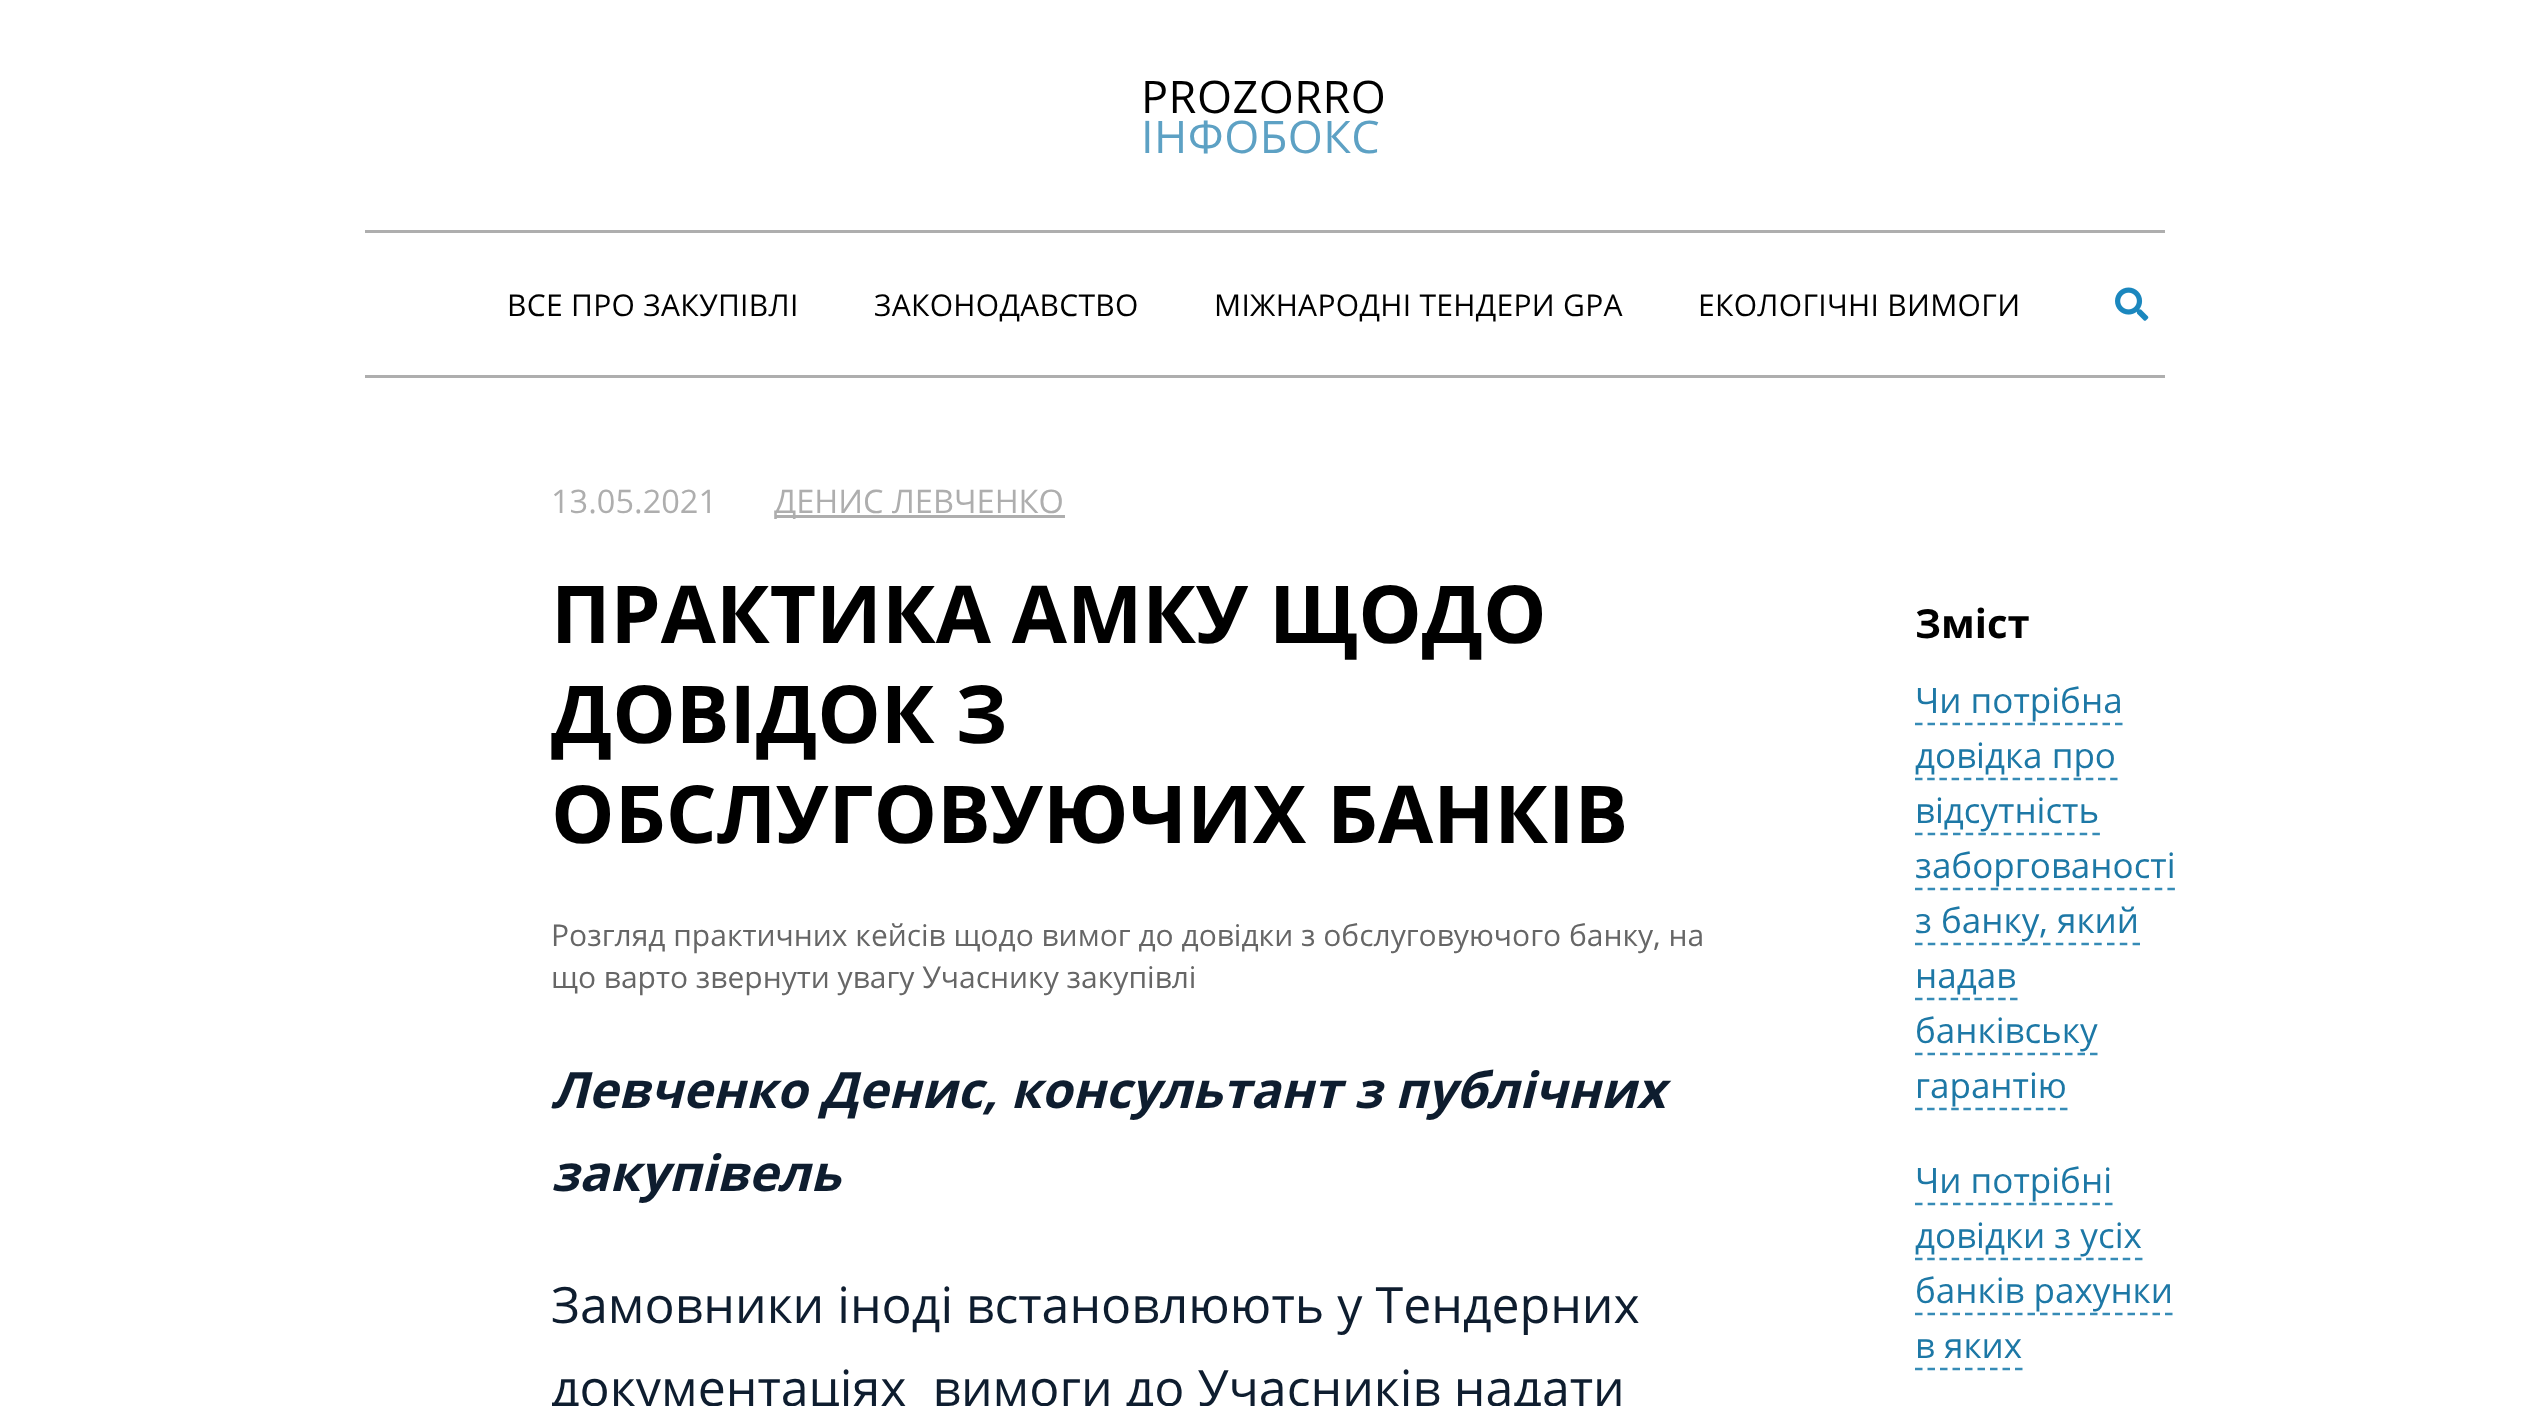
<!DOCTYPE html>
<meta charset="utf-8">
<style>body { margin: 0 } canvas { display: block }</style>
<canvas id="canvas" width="2526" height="1406"></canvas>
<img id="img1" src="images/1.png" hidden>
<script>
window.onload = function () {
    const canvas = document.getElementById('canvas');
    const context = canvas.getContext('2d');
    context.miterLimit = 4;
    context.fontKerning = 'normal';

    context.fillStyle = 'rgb(255, 255, 255)';
    context.fillRect(0, 0, 2526, 1406);
    context.fillStyle = 'rgb(174, 174, 174)';
    context.fillRect(365, 230, 1800, 3);
    context.fillRect(365, 375, 1800, 3);
    context.drawImage(document.getElementById('img1'), 2115, 287, 34, 34);
    context.fillRect(775, 515, 290, 3);
    context.beginPath();
    context.moveTo(1915, 724);
    context.lineTo(2122.5, 724);
    context.strokeStyle = 'rgb(54, 139, 182)';
    context.lineWidth = 2.5;
    context.setLineDash([7.5, 5]);
    context.stroke();
    context.beginPath();
    context.moveTo(1915, 779);
    context.lineTo(2117.5, 779);
    context.setLineDash([7.5, 4.7]);
    context.stroke();
    context.beginPath();
    context.moveTo(1915, 834);
    context.lineTo(2100, 834);
    context.setLineDash([7.5, 5.17]);
    context.stroke();
    context.beginPath();
    context.moveTo(1915, 889);
    context.lineTo(2175, 889);
    context.setLineDash([7.5, 5.12]);
    context.stroke();
    context.beginPath();
    context.moveTo(1915, 944);
    context.lineTo(2140, 944);
    context.setLineDash([7.5, 5.3]);
    context.stroke();
    context.beginPath();
    context.moveTo(1915, 999);
    context.lineTo(2017.5, 999);
    context.setLineDash([7.5, 4.38]);
    context.stroke();
    context.beginPath();
    context.moveTo(1915, 1054);
    context.lineTo(2097.5, 1054);
    context.setLineDash([7.5, 5]);
    context.stroke();
    context.beginPath();
    context.moveTo(1915, 1109);
    context.lineTo(2067.5, 1109);
    context.setLineDash([7.5, 4.58]);
    context.stroke();
    context.beginPath();
    context.moveTo(1915, 1204);
    context.lineTo(2112.5, 1204);
    context.setLineDash([7.5, 5.17]);
    context.stroke();
    context.beginPath();
    context.moveTo(1915, 1259);
    context.lineTo(2142.5, 1259);
    context.setLineDash([7.5, 4.72]);
    context.stroke();
    context.beginPath();
    context.moveTo(1915, 1314);
    context.lineTo(2172.5, 1314);
    context.setLineDash([7.5, 5]);
    context.stroke();
    context.beginPath();
    context.moveTo(1915, 1369);
    context.lineTo(2022.5, 1369);
    context.stroke();
    context.letterSpacing = '0.5px';
    context.font = '45px Open Sans';
    context.fillStyle = 'rgb(0, 0, 0)';
    context.fillText('PROZORRO', 1141, 113);
    context.fillStyle = 'rgb(93, 161, 196)';
    context.fillText('ІНФОБОКС', 1141, 153);
    context.letterSpacing = '0.3px';
    context.font = '30px Open Sans';
    context.fillStyle = 'rgb(0, 0, 0)';
    context.fillText('ВСЕ ПРО ЗАКУПІВЛІ', 507, 316);
    context.fillText('ЗАКОНОДАВСТВО', 874, 316);
    context.fillText('МІЖНАРОДНІ ТЕНДЕРИ GPA', 1214, 316);
    context.fillText('ЕКОЛОГІЧНІ ВИМОГИ', 1698, 316);
    context.letterSpacing = '0px';
    context.font = '32.5px Open Sans';
    context.fillStyle = 'rgb(174, 174, 174)';
    context.fillText('13.05.2021', 551, 513);
    context.fillText('ДЕНИС ЛЕВЧЕНКО', 774, 513);
    context.font = 'bold 80px Open Sans';
    context.fillStyle = 'rgb(0, 0, 0)';
    context.fillText('ПРАКТИКА АМКУ ЩОДО', 551, 643);
    context.fillText('ДОВІДОК З', 551, 743);
    context.fillText('ОБСЛУГОВУЮЧИХ БАНКІВ', 551, 843);
    context.font = '30px Open Sans';
    context.fillStyle = 'rgb(102, 102, 102)';
    context.fillText('Розгляд практичних кейсів щодо вимог до довідки з обслуговуючого банку, на', 551, 946);
    context.fillText('що варто звернути увагу Учаснику закупівлі', 551, 988);
    context.font = 'italic bold 50px Open Sans';
    context.fillStyle = 'rgb(14, 29, 47)';
    context.fillText('Левченко Денис, консультант з публічних', 551, 1108);
    context.fillText('закупівель', 551, 1191);
    context.font = '50px Open Sans';
    context.fillText('Замовники іноді встановлюють у Тендерних', 551, 1323);
    context.fillText('документаціях  вимоги до Учасників надати', 551, 1406);
    context.font = 'bold 40px Open Sans';
    context.fillStyle = 'rgb(0, 0, 0)';
    context.fillText('Зміст', 1915, 638);
    context.font = '35px Open Sans';
    context.fillStyle = 'rgb(29, 120, 166)';
    context.fillText('Чи потрібна', 1915, 713);
    context.fillText('довідка про', 1915, 768);
    context.fillText('відсутність', 1915, 823);
    context.fillText('заборгованості', 1915, 878);
    context.fillText('з банку, який', 1915, 933);
    context.fillText('надав', 1915, 988);
    context.fillText('банківську', 1915, 1043);
    context.fillText('гарантію', 1915, 1098);
    context.fillText('Чи потрібні', 1915, 1193);
    context.fillText('довідки з усіх', 1915, 1248);
    context.fillText('банків рахунки', 1915, 1303);
    context.fillText('в яких', 1915, 1358);
};
</script>
